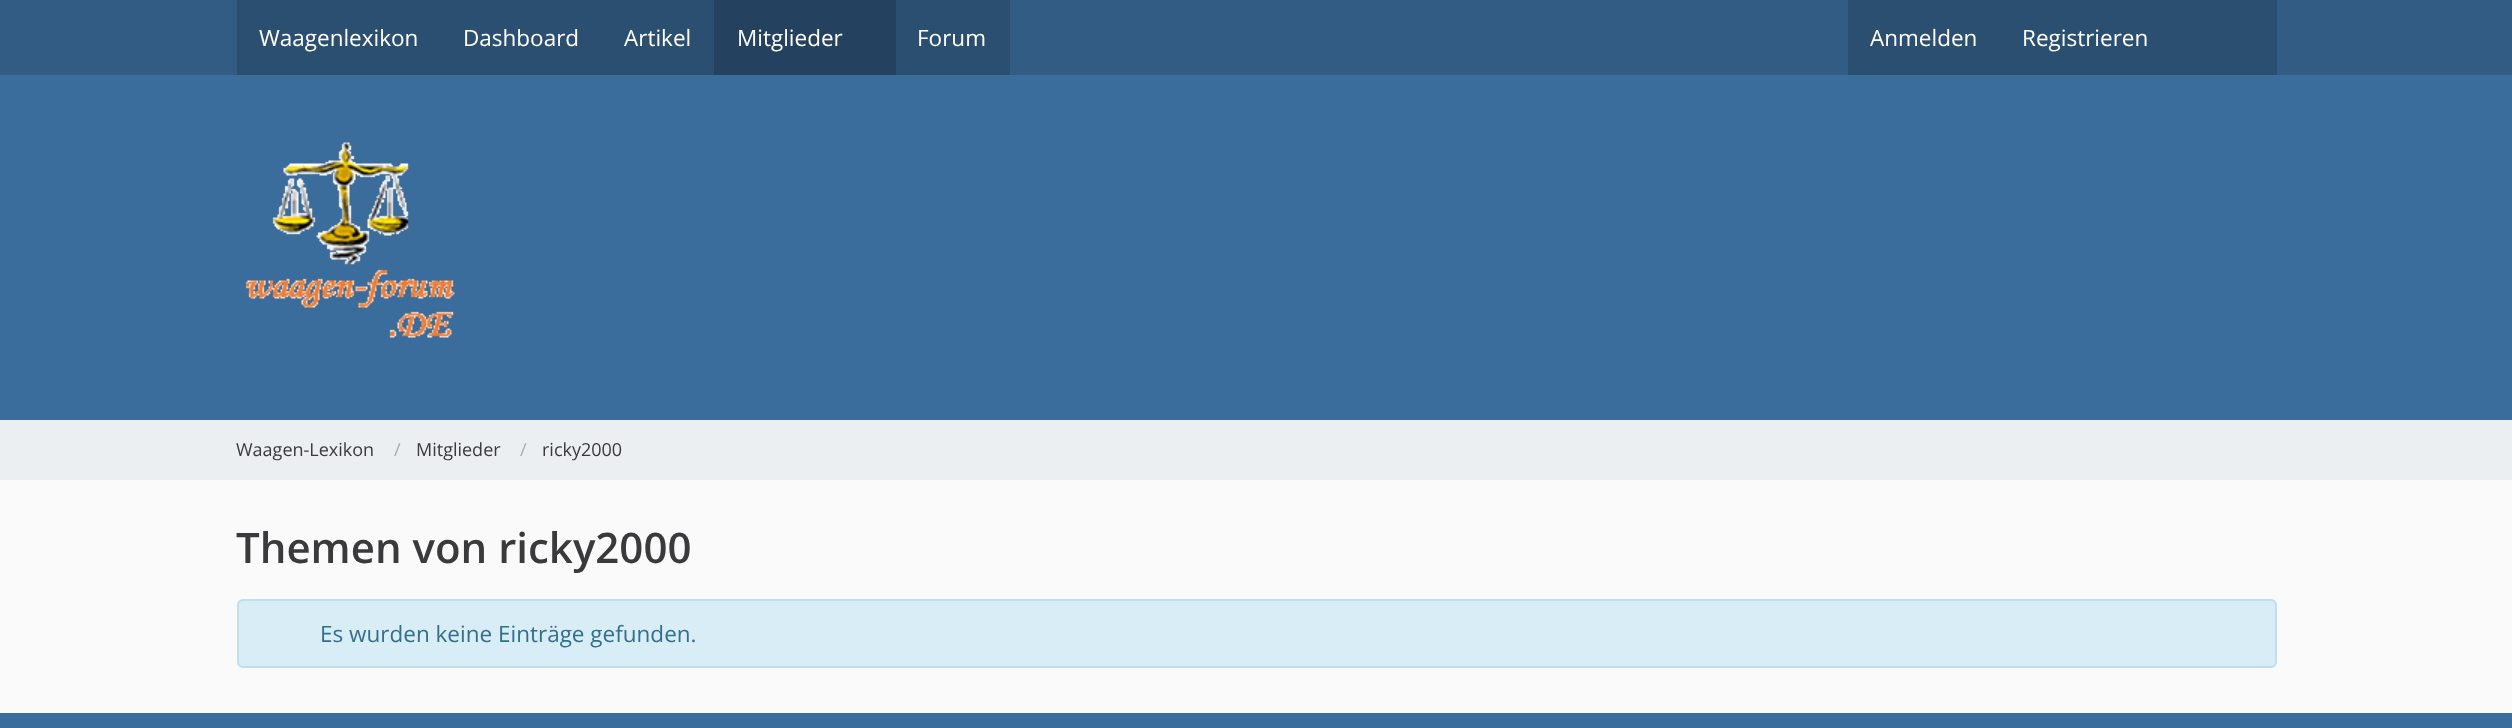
<!DOCTYPE html>
<meta charset="utf-8">
<style>body { margin: 0 } canvas { display: block }</style>
<canvas id="canvas" width="2512" height="728"></canvas>
<img id="img1" src="images/1.png" hidden>
<script>
window.onload = function () {
    const canvas = document.getElementById('canvas');
    const context = canvas.getContext('2d');
    context.miterLimit = 4;
    context.fontKerning = 'normal';

    context.fillStyle = 'rgb(250, 250, 250)';
    context.fillRect(0, 0, 2512, 728);
    context.fillStyle = 'rgb(58, 109, 156)';
    context.fillRect(0, 75, 2512, 345);
    context.fillStyle = 'rgb(50, 92, 132)';
    context.fillRect(0, 0, 2512, 75);
    context.fillStyle = 'rgb(43, 79, 113)';
    context.fillRect(237, 0, 477, 75);
    context.fillStyle = 'rgb(36, 66, 95)';
    context.fillRect(714, 0, 182, 75);
    context.fillStyle = 'rgb(43, 79, 113)';
    context.fillRect(896, 0, 114, 75);
    context.fillRect(1848, 0, 429, 75);
    context.drawImage(document.getElementById('img1'), 245, 142, 210, 196);
    context.fillStyle = 'rgb(236, 239, 241)';
    context.fillRect(0, 420, 2512, 60);
    context.fillStyle = 'rgb(217, 237, 247)';
    context.beginPath();
    context.roundRect(238, 600, 2038, 67, 5);
    context.fill();
    context.strokeStyle = 'rgb(188, 223, 241)';
    context.lineWidth = 2;
    context.stroke();
    context.fillStyle = 'rgb(58, 109, 156)';
    context.fillRect(0, 713, 2512, 15);
    context.font = '22.5px Open Sans';
    context.fillStyle = 'rgb(255, 255, 255)';
    context.fillText('Waagenlexikon', 259, 46);
    context.fillText('Dashboard', 463, 46);
    context.fillText('Artikel', 624, 46);
    context.fillText('Mitglieder', 737, 46);
    context.fillText('Forum', 917, 46);
    context.fillText('Anmelden', 1870, 46);
    context.fillText('Registrieren', 2022, 46);
    context.font = '18px Open Sans';
    context.fillStyle = 'rgb(58, 58, 61)';
    context.fillText('Waagen-Lexikon', 236, 456);
    context.fillStyle = 'rgb(170, 170, 170)';
    context.fillText('/', 394, 456);
    context.fillStyle = 'rgb(58, 58, 61)';
    context.fillText('Mitglieder', 416, 456);
    context.fillStyle = 'rgb(170, 170, 170)';
    context.fillText('/', 520, 456);
    context.fillStyle = 'rgb(58, 58, 61)';
    context.fillText('ricky2000', 542, 456);
    context.font = '600 42px Open Sans';
    context.fillText('Themen von ricky2000', 236, 563);
    context.font = '22.5px Open Sans';
    context.fillStyle = 'rgb(49, 112, 143)';
    context.fillText('Es wurden keine Einträge gefunden.', 320, 642);
};
</script>
